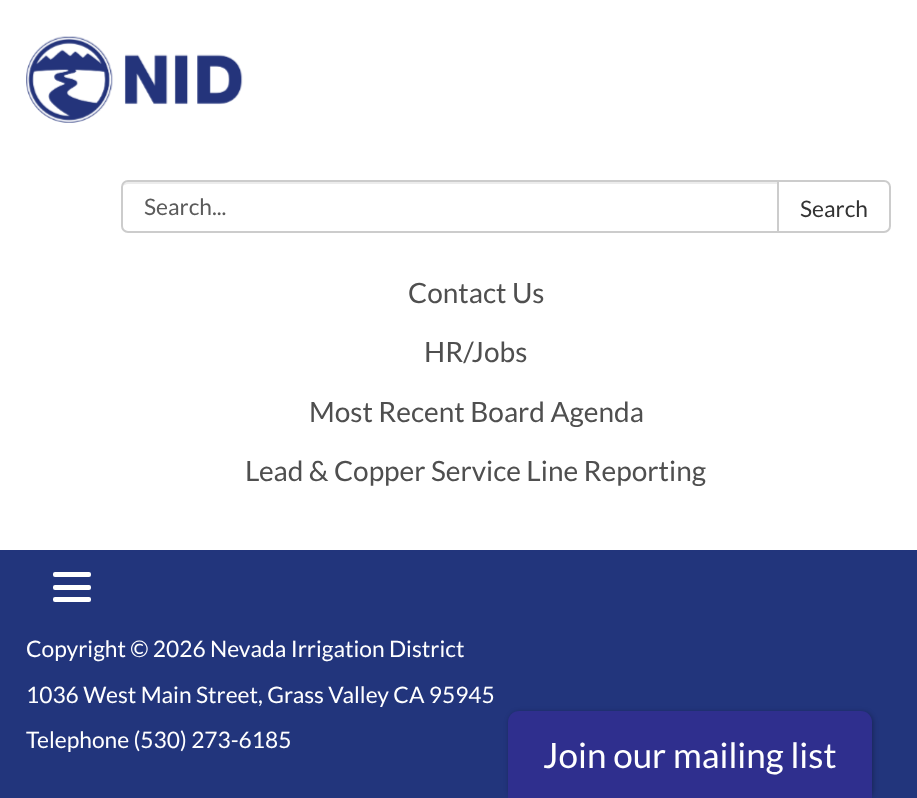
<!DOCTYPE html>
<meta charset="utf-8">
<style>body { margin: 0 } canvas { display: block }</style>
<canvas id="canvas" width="917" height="798"></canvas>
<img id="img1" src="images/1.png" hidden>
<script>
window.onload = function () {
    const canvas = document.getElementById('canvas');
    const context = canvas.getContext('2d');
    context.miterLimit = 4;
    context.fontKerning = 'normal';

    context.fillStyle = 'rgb(34, 53, 124)';
    context.fillRect(0, 0, 917, 798);
    context.fillStyle = 'rgb(255, 255, 255)';
    context.fillRect(0, 0, 917, 550);
    context.drawImage(document.getElementById('img1'), 26, 36, 217, 87);
    context.fillStyle = 'rgb(236, 236, 236)';
    context.beginPath();
    context.moveTo(128, 184);
    context.lineTo(777, 184);
    context.lineTo(777, 182);
    context.lineTo(128, 182);
    context.bezierCurveTo(126, 182, 123, 184, 123, 186);
    context.bezierCurveTo(124, 185, 126, 184, 128, 184);
    context.closePath();
    context.fill();
    context.beginPath();
    context.roundRect(122, 181, 656, 51, [6, 0, 0, 6]);
    context.strokeStyle = 'rgb(204, 204, 204)';
    context.lineWidth = 2;
    context.stroke();
    context.fillStyle = 'rgb(255, 255, 255)';
    context.beginPath();
    context.roundRect(778, 181, 112, 51, [0, 6, 6, 0]);
    context.fill();
    context.stroke();
    context.beginPath();
    context.roundRect(53, 572, 38, 5, 2);
    context.fill();
    context.beginPath();
    context.roundRect(53, 585, 38, 5, 2);
    context.fill();
    context.beginPath();
    context.roundRect(53, 597, 38, 5, 2);
    context.fill();
    context.fillStyle = 'rgba(0, 0, 0, 0.3)';
    context.filter = 'blur(2.5px)';
    context.beginPath();
    context.roundRect(509, 712, 364, 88, 11);
    context.fill();
    context.filter = 'none';
    context.fillStyle = 'rgb(47, 47, 142)';
    context.beginPath();
    context.roundRect(508, 711, 364, 87, [11, 11, 0, 0]);
    context.fill();
    context.font = '22.75px Lato';
    context.fillStyle = 'rgb(91, 91, 91)';
    context.fillText('Search...', 144, 215);
    context.fillStyle = 'rgb(51, 51, 51)';
    context.fillText('Search', 800, 217);
    context.font = '28px Lato';
    context.fillStyle = 'rgb(79, 79, 79)';
    context.fillText('Contact Us', 408, 303);
    context.fillText('HR/Jobs', 424, 362);
    context.fillText('Most Recent Board Agenda', 309, 422);
    context.fillText('Lead & Copper Service Line Reporting', 245, 481);
    context.font = '22.75px Lato';
    context.fillStyle = 'rgb(255, 255, 255)';
    context.fillText('Copyright © 2026 Nevada Irrigation District', 26, 657);
    context.fillText('1036 West Main Street, Grass Valley CA 95945', 26, 703);
    context.fillText('Telephone (530) 273-6185', 26, 748);
    context.font = '35px Lato';
    context.fillText('Join our mailing list', 543, 768);
};
</script>
